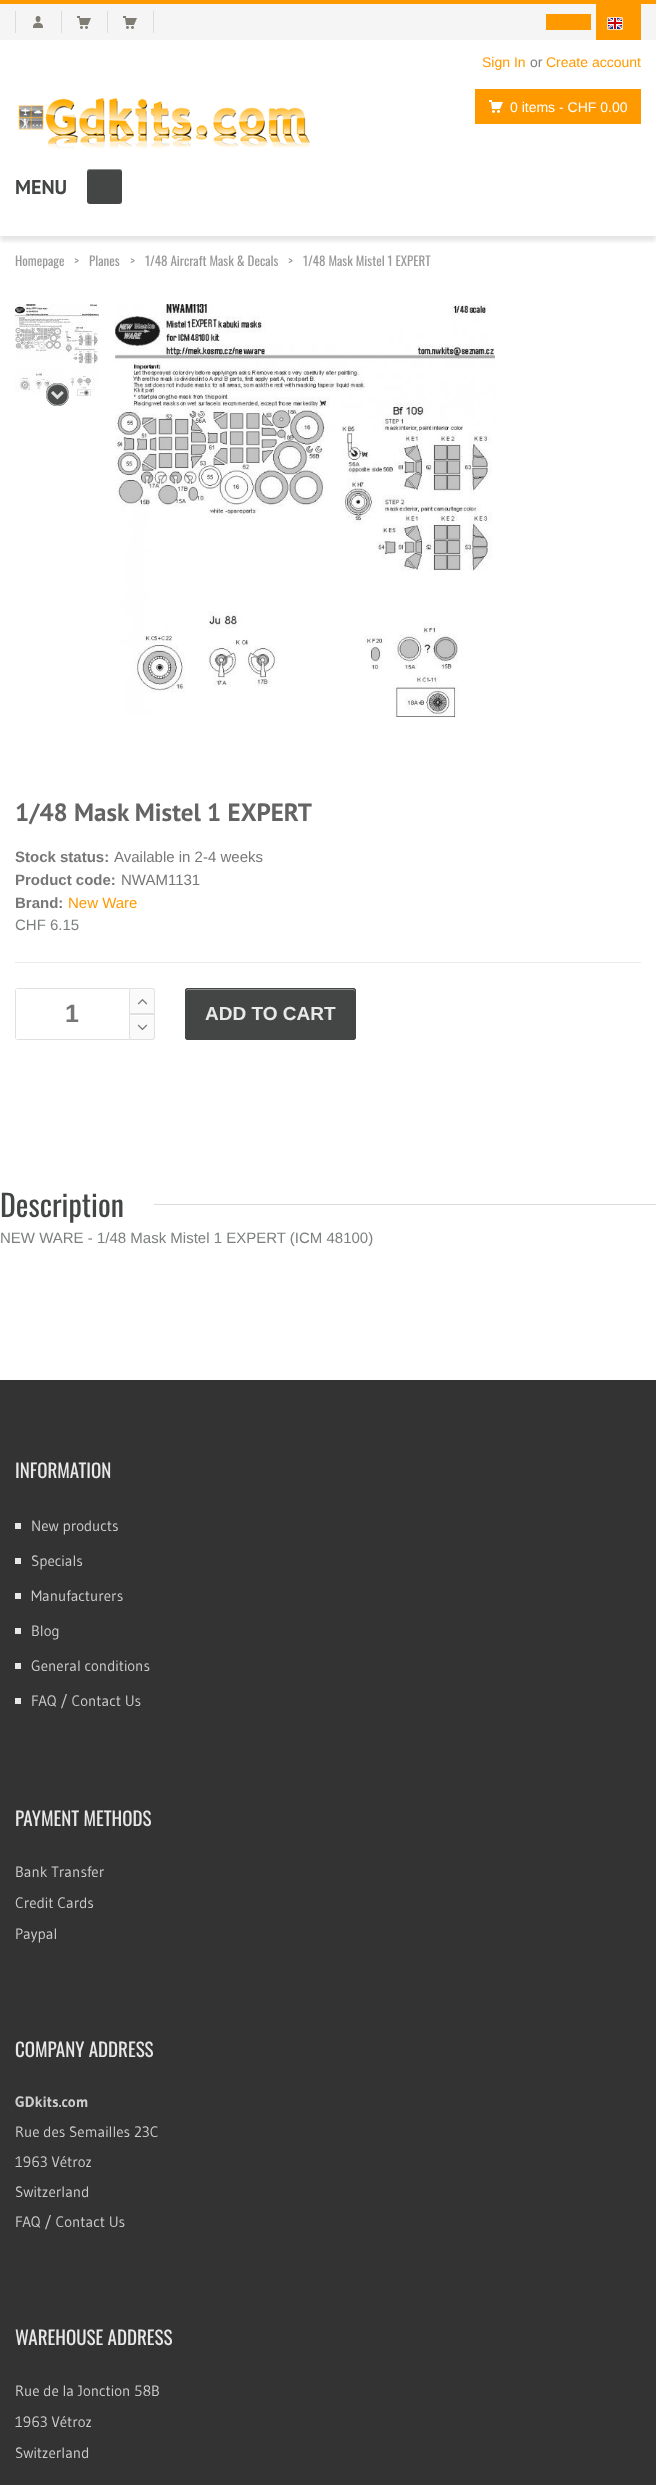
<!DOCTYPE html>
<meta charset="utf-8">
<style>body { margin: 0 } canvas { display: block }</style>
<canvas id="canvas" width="656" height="2485"></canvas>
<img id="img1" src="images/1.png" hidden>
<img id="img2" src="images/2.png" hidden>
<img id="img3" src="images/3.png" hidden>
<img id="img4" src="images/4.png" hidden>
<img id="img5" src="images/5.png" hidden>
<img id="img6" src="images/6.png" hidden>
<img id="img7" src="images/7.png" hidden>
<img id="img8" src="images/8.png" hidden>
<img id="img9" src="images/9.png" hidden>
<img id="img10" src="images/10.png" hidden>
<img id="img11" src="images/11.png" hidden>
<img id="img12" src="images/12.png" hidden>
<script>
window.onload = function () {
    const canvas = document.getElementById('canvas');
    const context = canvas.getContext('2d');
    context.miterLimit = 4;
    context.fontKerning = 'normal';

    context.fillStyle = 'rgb(255, 255, 255)';
    context.fillRect(0, 0, 656, 2485);
    context.fillStyle = 'rgb(245, 245, 245)';
    context.fillRect(0, 4, 656, 36);
    context.fillStyle = 'rgb(255, 153, 0)';
    context.fillRect(0, 0, 656, 4);
    context.fillStyle = 'rgb(220, 220, 220)';
    context.fillRect(61, 11, 1, 22);
    context.fillRect(15, 11, 1, 22);
    context.drawImage(document.getElementById('img1'), 33, 16, 10, 12);
    context.fillRect(107, 11, 1, 22);
    context.drawImage(document.getElementById('img2'), 77, 16, 14, 13);
    context.fillRect(153, 11, 1, 22);
    context.drawImage(document.getElementById('img2'), 123, 16, 14, 13);
    context.fillStyle = 'rgb(255, 153, 0)';
    context.fillRect(546, 14, 45, 16);
    context.fillRect(596, 4, 45, 36);
    context.drawImage(document.getElementById('img3'), 607, 17, 16, 13);
    context.drawImage(document.getElementById('img4'), 18, 98, 292, 51);
    context.fillRect(475, 89, 166, 35);
    context.drawImage(document.getElementById('img5'), 489, 100, 14, 13);
    context.save();
    context.beginPath();
    context.rect(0, 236, 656, 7);
    context.clip();
    context.fillStyle = 'rgba(0, 0, 0, 0.1)';
    context.filter = 'blur(2px)';
    context.beginPath();
    context.rect(0, 165, 656, 76);
    context.fill();
    context.filter = 'none';
    context.restore();
    context.fillStyle = 'rgb(68, 70, 69)';
    context.beginPath();
    context.roundRect(87, 169, 35, 35, 3);
    context.fill();
    context.fillStyle = 'rgba(255, 255, 255, 0.4)';
    context.beginPath();
    context.moveTo(90, 170);
    context.lineTo(119, 170);
    context.bezierCurveTo(121, 170, 122, 171, 122, 173);
    context.bezierCurveTo(122, 168, 118.5, 169, 114, 169);
    context.lineTo(95, 169);
    context.bezierCurveTo(90.5, 169, 87, 168, 87, 173);
    context.bezierCurveTo(87, 171, 88, 170, 90, 170);
    context.closePath();
    context.fill();
    context.drawImage(document.getElementById('img6'), 15, 304, 84, 92);
    context.fillStyle = 'rgba(68, 70, 69, 0.8)';
    context.beginPath();
    context.arc(57.5, 394.5, 11.5, 0, 2 * Math.PI);
    context.fill();
    context.drawImage(document.getElementById('img7'), 51, 391, 13, 9);
    context.fillStyle = 'rgb(165, 166, 166)';
    context.beginPath();
    context.moveTo(58, 385);
    context.bezierCurveTo(65, 385, 68.5, 391.5, 67.5, 397.5);
    context.bezierCurveTo(68.5, 394.5, 68, 391, 66, 388.5);
    context.bezierCurveTo(59, 377.5, 42.5, 388, 48, 399);
    context.bezierCurveTo(46, 393, 49.5, 385, 58, 385);
    context.closePath();
    context.fill();
    context.beginPath();
    context.arc(57.5, 394.5, 11, 0, 2 * Math.PI);
    context.strokeStyle = 'rgba(224, 224, 224, 0.8)';
    context.stroke();
    context.fillStyle = 'rgba(68, 70, 69, 0.8)';
    context.beginPath();
    context.arc(57.5, 394.5, 11.5, 0, 2 * Math.PI);
    context.fill();
    context.drawImage(document.getElementById('img8'), 51, 391, 13, 9);
    context.fillStyle = 'rgba(255, 255, 255, 0.4)';
    context.beginPath();
    context.moveTo(58, 385);
    context.bezierCurveTo(65, 385, 68.5, 391.5, 67.5, 397.5);
    context.bezierCurveTo(68.5, 394.5, 68, 391, 66, 388.5);
    context.bezierCurveTo(59, 377.5, 42.5, 388, 48, 399);
    context.bezierCurveTo(46, 393, 49.5, 385, 58, 385);
    context.closePath();
    context.fill();
    context.beginPath();
    context.arc(57.5, 394.5, 11, 0, 2 * Math.PI);
    context.stroke();
    context.drawImage(document.getElementById('img9'), 115, 304, 380, 413);
    context.fillStyle = 'rgb(235, 235, 235)';
    context.fillRect(15, 962, 626, 1);
    context.beginPath();
    context.roundRect(15.5, 988.5, 139, 51, 2.5);
    context.strokeStyle = 'rgb(224, 224, 224)';
    context.stroke();
    context.fillStyle = 'rgb(255, 255, 255)';
    context.fillRect(16, 989, 2, 50);
    context.fillStyle = 'rgb(250, 250, 250)';
    context.beginPath();
    context.roundRect(129, 988, 26, 26, [3, 3, 0, 0]);
    context.fill();
    context.fillStyle = 'rgb(254, 254, 254)';
    context.beginPath();
    context.moveTo(132, 990);
    context.lineTo(152, 990);
    context.bezierCurveTo(153, 990, 154, 991, 154, 992);
    context.bezierCurveTo(154, 988.5, 152, 989, 148.5, 989);
    context.lineTo(135.5, 989);
    context.bezierCurveTo(132, 989, 130, 988.5, 130, 992);
    context.bezierCurveTo(130, 991, 131, 990, 132, 990);
    context.closePath();
    context.fill();
    context.beginPath();
    context.roundRect(129.5, 988.5, 25, 25, [2.5, 2.5, 0, 0]);
    context.stroke();
    context.drawImage(document.getElementById('img10'), 137, 999, 11, 6);
    context.fillStyle = 'rgb(250, 250, 250)';
    context.beginPath();
    context.roundRect(129, 1014, 26, 26, [0, 0, 3, 3]);
    context.fill();
    context.fillStyle = 'rgb(254, 254, 254)';
    context.fillRect(130, 1015, 24, 1);
    context.beginPath();
    context.roundRect(129.5, 1014.5, 25, 25, [0, 0, 2.5, 2.5]);
    context.stroke();
    context.drawImage(document.getElementById('img11'), 137, 1024, 11, 7);
    context.fillStyle = 'rgb(68, 70, 69)';
    context.beginPath();
    context.roundRect(185, 988, 171, 52, 3);
    context.fill();
    context.fillStyle = 'rgb(143, 144, 143)';
    context.beginPath();
    context.moveTo(188, 990);
    context.lineTo(353, 990);
    context.bezierCurveTo(354, 990, 355, 991, 355, 992);
    context.bezierCurveTo(355, 991, 355, 989, 353, 989);
    context.lineTo(188, 989);
    context.bezierCurveTo(186, 989, 186, 991, 186, 992);
    context.bezierCurveTo(186, 991, 187, 990, 188, 990);
    context.closePath();
    context.fill();
    context.beginPath();
    context.roundRect(185.5, 988.5, 170, 51, 2.5);
    context.strokeStyle = 'rgb(68, 70, 69)';
    context.stroke();
    context.fillStyle = 'rgb(220, 220, 220)';
    context.fillRect(154, 1204, 502, 1);
    context.fillStyle = 'rgb(51, 51, 51)';
    context.fillRect(0, 1380, 656, 1105);
    context.drawImage(document.getElementById('img12'), 15, 1523, 6, 6);
    context.drawImage(document.getElementById('img12'), 15, 1558, 6, 6);
    context.drawImage(document.getElementById('img12'), 15, 1593, 6, 6);
    context.drawImage(document.getElementById('img12'), 15, 1628, 6, 6);
    context.drawImage(document.getElementById('img12'), 15, 1663, 6, 6);
    context.drawImage(document.getElementById('img12'), 15, 1698, 6, 6);
    context.font = '14px Liberation Sans';
    context.fillStyle = 'rgb(255, 153, 0)';
    context.fillText('Sign In', 482, 67);
    context.fillStyle = 'rgb(124, 128, 126)';
    context.fillText('or', 530, 67);
    context.fillStyle = 'rgb(255, 153, 0)';
    context.fillText('Create account', 546, 67);
    context.fillStyle = 'rgb(255, 255, 255)';
    context.fillText('0 items - CHF 0.00', 510, 112);
    context.font = 'bold 20px PT Sans';
    context.fillStyle = 'rgb(68, 70, 69)';
    context.fillText('MENU', 15, 194);
    context.font = '13px Oswald';
    context.fillStyle = 'rgb(153, 153, 153)';
    context.fillText('Homepage', 15, 266);
    context.fillText('>', 74, 266);
    context.fillText('Planes', 89, 266);
    context.fillText('>', 130, 266);
    context.fillText('1/48 Aircraft Mask & Decals', 145, 266);
    context.fillText('>', 288, 266);
    context.fillText('1/48 Mask Mistel 1 EXPERT', 303, 266);
    context.font = 'bold 25px PT Sans';
    context.fillStyle = 'rgb(100, 100, 100)';
    context.fillText('1/48 Mask Mistel 1 EXPERT', 15, 821);
    context.font = 'bold 15px Liberation Sans';
    context.fillStyle = 'rgb(119, 119, 119)';
    context.fillText('Stock status:', 15, 862);
    context.font = '15px Liberation Sans';
    context.fillText('Available in 2-4 weeks', 114, 862);
    context.font = 'bold 15px Liberation Sans';
    context.fillText('Product code:', 15, 885);
    context.font = '15px Liberation Sans';
    context.fillText('NWAM1131', 121, 885);
    context.font = 'bold 15px Liberation Sans';
    context.fillText('Brand:', 15, 908);
    context.font = '15px Liberation Sans';
    context.fillStyle = 'rgb(255, 153, 0)';
    context.fillText('New Ware', 68, 908);
    context.fillStyle = 'rgb(124, 128, 126)';
    context.fillText('CHF 6.15', 15, 930);
    context.font = 'bold 25px Liberation Sans';
    context.fillStyle = 'rgb(119, 119, 119)';
    context.fillText('1', 65, 1022);
    context.font = 'bold 19px Liberation Sans';
    context.fillStyle = 'rgb(232, 232, 232)';
    context.fillText('ADD TO CART', 205, 1020);
    context.font = '30px Oswald';
    context.fillStyle = 'rgb(68, 70, 69)';
    context.fillText('Description', 0, 1217);
    context.font = '15px Liberation Sans';
    context.fillStyle = 'rgb(124, 128, 126)';
    context.fillText('NEW WARE - 1/48 Mask Mistel 1 EXPERT (ICM 48100)', 0, 1243);
    context.font = '19px Oswald';
    context.fillStyle = 'rgb(232, 232, 232)';
    context.fillText('INFORMATION', 15, 1478);
    context.font = '15px Gudea';
    context.fillStyle = 'rgb(204, 204, 204)';
    context.fillText('New products', 31, 1531);
    context.fillText('Specials', 31, 1566);
    context.fillText('Manufacturers', 31, 1601);
    context.fillText('Blog', 31, 1636);
    context.fillText('General conditions', 31, 1671);
    context.fillText('FAQ / Contact Us', 31, 1706);
    context.font = '19px Oswald';
    context.fillStyle = 'rgb(232, 232, 232)';
    context.fillText('PAYMENT METHODS', 15, 1826);
    context.font = '15px Gudea';
    context.fillStyle = 'rgb(204, 204, 204)';
    context.fillText('Bank Transfer', 15, 1877);
    context.fillText('Credit Cards', 15, 1908);
    context.fillText('Paypal', 15, 1939);
    context.font = '19px Oswald';
    context.fillStyle = 'rgb(232, 232, 232)';
    context.fillText('COMPANY ADDRESS', 15, 2057);
    context.font = 'bold 15px Gudea';
    context.fillStyle = 'rgb(204, 204, 204)';
    context.fillText('GDkits.com', 15, 2107);
    context.font = '15px Gudea';
    context.fillText('Rue des Semailles 23C', 15, 2137);
    context.fillText('1963 Vétroz', 15, 2167);
    context.fillText('Switzerland', 15, 2197);
    context.fillText('FAQ / Contact Us', 15, 2227);
    context.font = '19px Oswald';
    context.fillStyle = 'rgb(232, 232, 232)';
    context.fillText('WAREHOUSE ADDRESS', 15, 2345);
    context.font = '15px Gudea';
    context.fillStyle = 'rgb(204, 204, 204)';
    context.fillText('Rue de la Jonction 58B', 15, 2396);
    context.fillText('1963 Vétroz', 15, 2427);
    context.fillText('Switzerland', 15, 2458);
};
</script>
